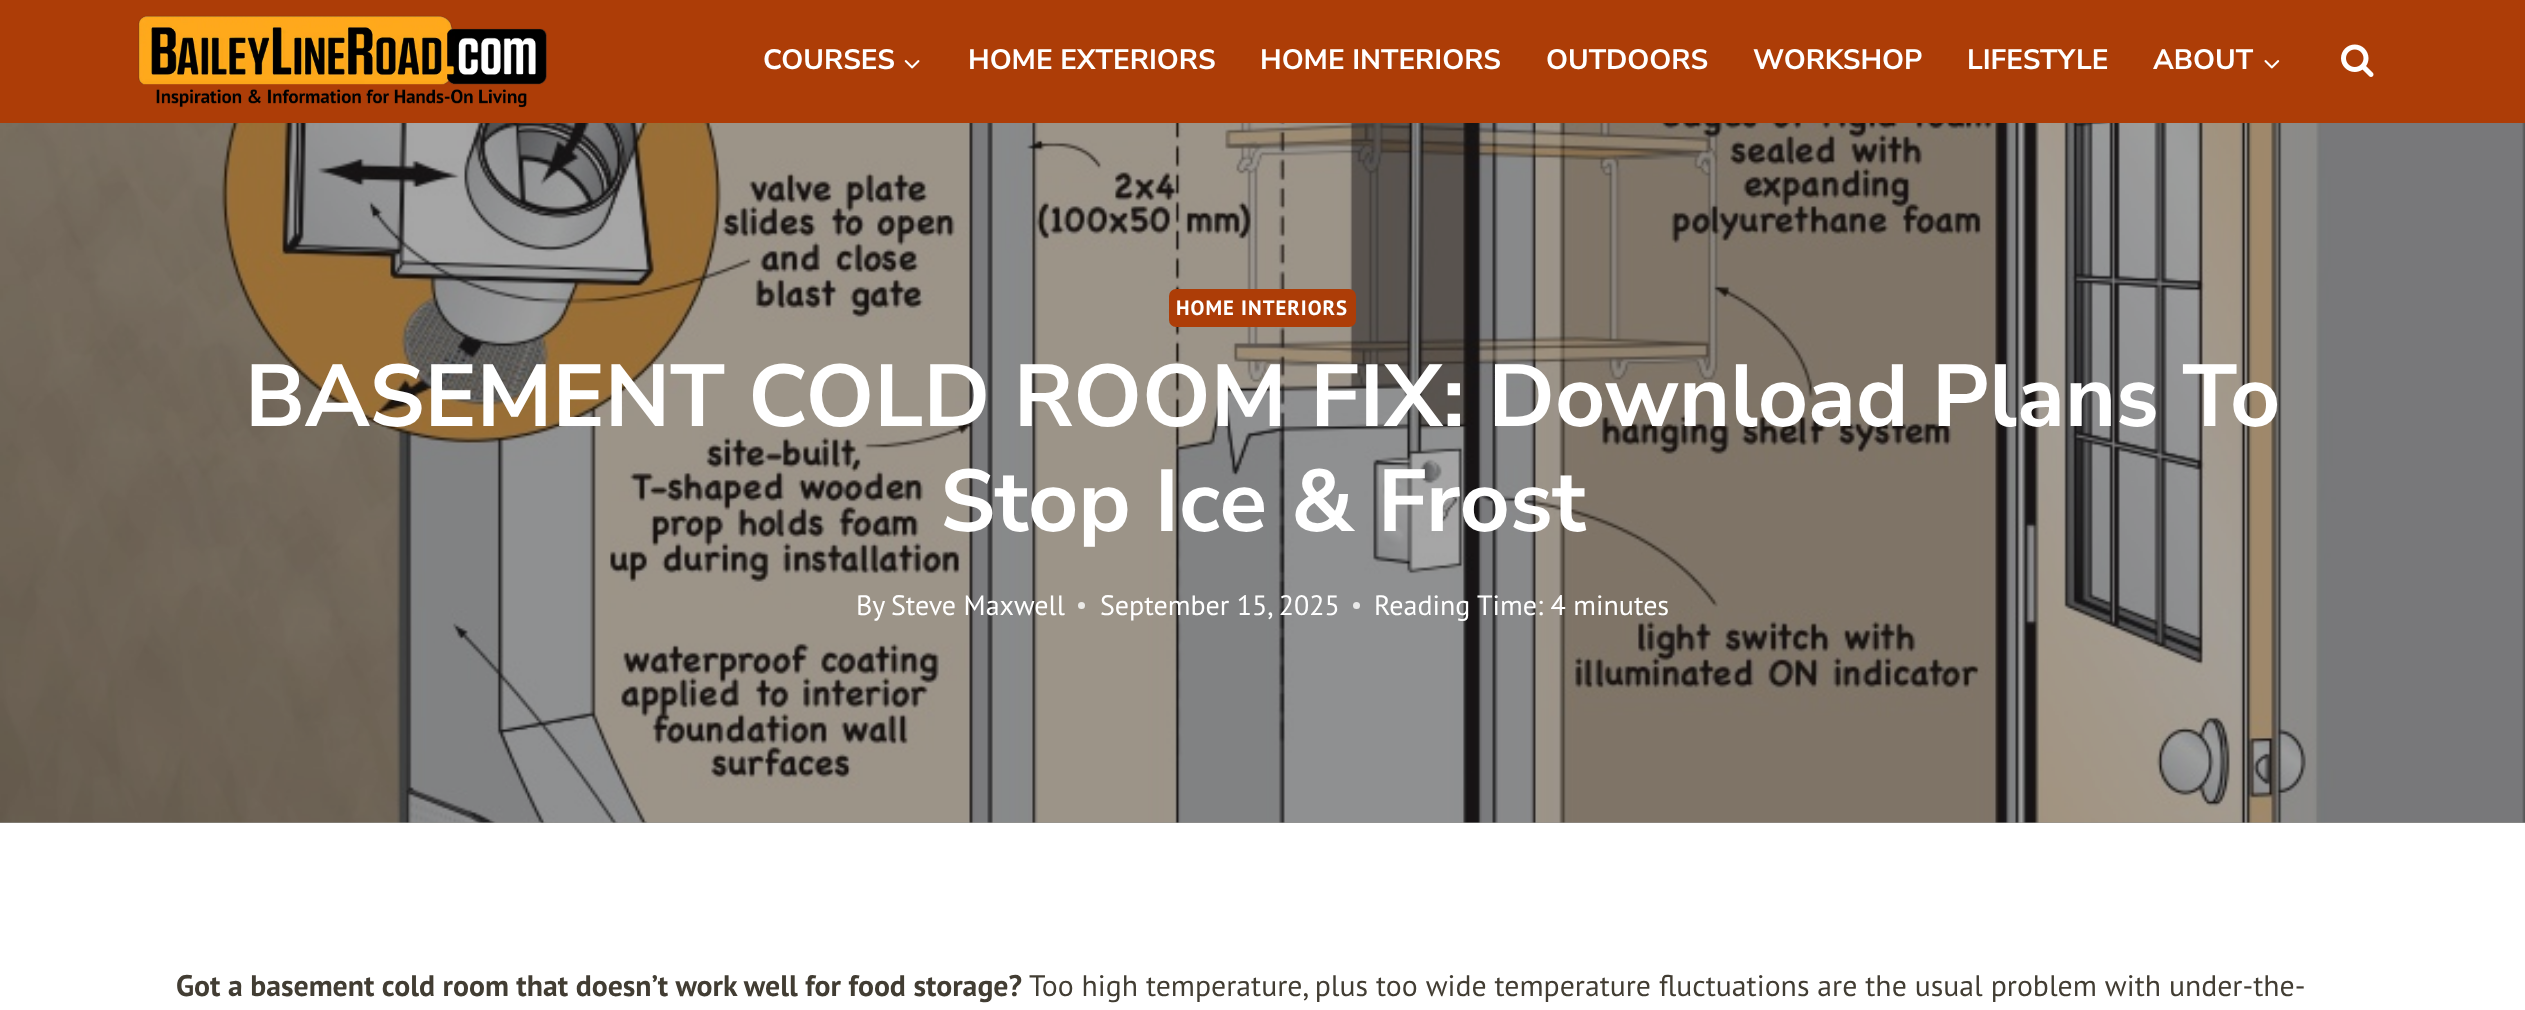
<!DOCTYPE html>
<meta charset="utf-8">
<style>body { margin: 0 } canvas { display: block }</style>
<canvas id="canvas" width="2525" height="1010"></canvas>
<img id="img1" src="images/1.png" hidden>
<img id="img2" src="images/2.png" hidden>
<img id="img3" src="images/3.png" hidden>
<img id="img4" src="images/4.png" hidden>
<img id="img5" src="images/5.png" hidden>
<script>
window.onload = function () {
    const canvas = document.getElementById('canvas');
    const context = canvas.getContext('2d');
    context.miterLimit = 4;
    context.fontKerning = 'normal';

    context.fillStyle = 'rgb(255, 255, 255)';
    context.fillRect(0, 0, 2525, 1010);
    context.fillStyle = 'rgb(173, 61, 7)';
    context.fillRect(0, 0, 2525, 123);
    context.drawImage(document.getElementById('img1'), 138, 15, 409, 93);
    context.drawImage(document.getElementById('img2'), 904, 60, 16, 9);
    context.drawImage(document.getElementById('img3'), 2264, 60, 16, 9);
    context.drawImage(document.getElementById('img4'), 2341, 44, 33, 33);
    context.fillStyle = 'rgb(151, 150, 146)';
    context.fillRect(0, 822, 2525, 1);
    context.drawImage(document.getElementById('img5'), 0, 123, 2525, 700);
    context.fillStyle = 'rgb(173, 61, 7)';
    context.beginPath();
    context.roundRect(1169, 289, 187, 38, 7);
    context.fill();
    context.fillStyle = 'rgb(235, 234, 231)';
    context.beginPath();
    context.arc(1081.5, 605.5, 3.5, 0, 2 * Math.PI);
    context.fill();
    context.fillStyle = 'rgb(233, 233, 233)';
    context.beginPath();
    context.arc(1356.5, 605.5, 3.5, 0, 2 * Math.PI);
    context.fill();
    context.font = 'bold 28px Nunito Sans';
    context.fillStyle = 'rgb(255, 255, 255)';
    context.fillText('COURSES', 763, 69);
    context.fillText('HOME EXTERIORS', 968, 69);
    context.fillText('HOME INTERIORS', 1260, 69);
    context.fillText('OUTDOORS', 1546, 69);
    context.fillText('WORKSHOP', 1753, 69);
    context.fillText('LIFESTYLE', 1967, 69);
    context.fillText('ABOUT', 2153, 69);
    context.letterSpacing = '1px';
    context.font = 'bold 20.75px PT Sans';
    context.fillText('HOME INTERIORS', 1176, 315);
    context.letterSpacing = '0px';
    context.font = 'bold 87.5px Nunito Sans';
    context.fillText('BASEMENT COLD ROOM FIX: Download Plans To', 245, 426);
    context.fillText('Stop Ice & Frost', 940, 531);
    context.font = '28px PT Sans';
    context.fillText('By', 856, 615);
    context.fillText('Steve Maxwell', 891, 615);
    context.fillText('September 15, 2025', 1100, 615);
    context.fillText('Reading Time: 4 minutes', 1374, 615);
    context.font = 'bold 29.75px PT Sans';
    context.fillStyle = 'rgb(66, 61, 51)';
    context.fillText('Got a basement cold room that doesn’t work well for food storage?', 176, 996);
    context.font = '29.75px PT Sans';
    context.fillText('Too high temperature, plus too wide temperature fluctuations are the usual problem with under-the-', 1029, 996);
};
</script>
